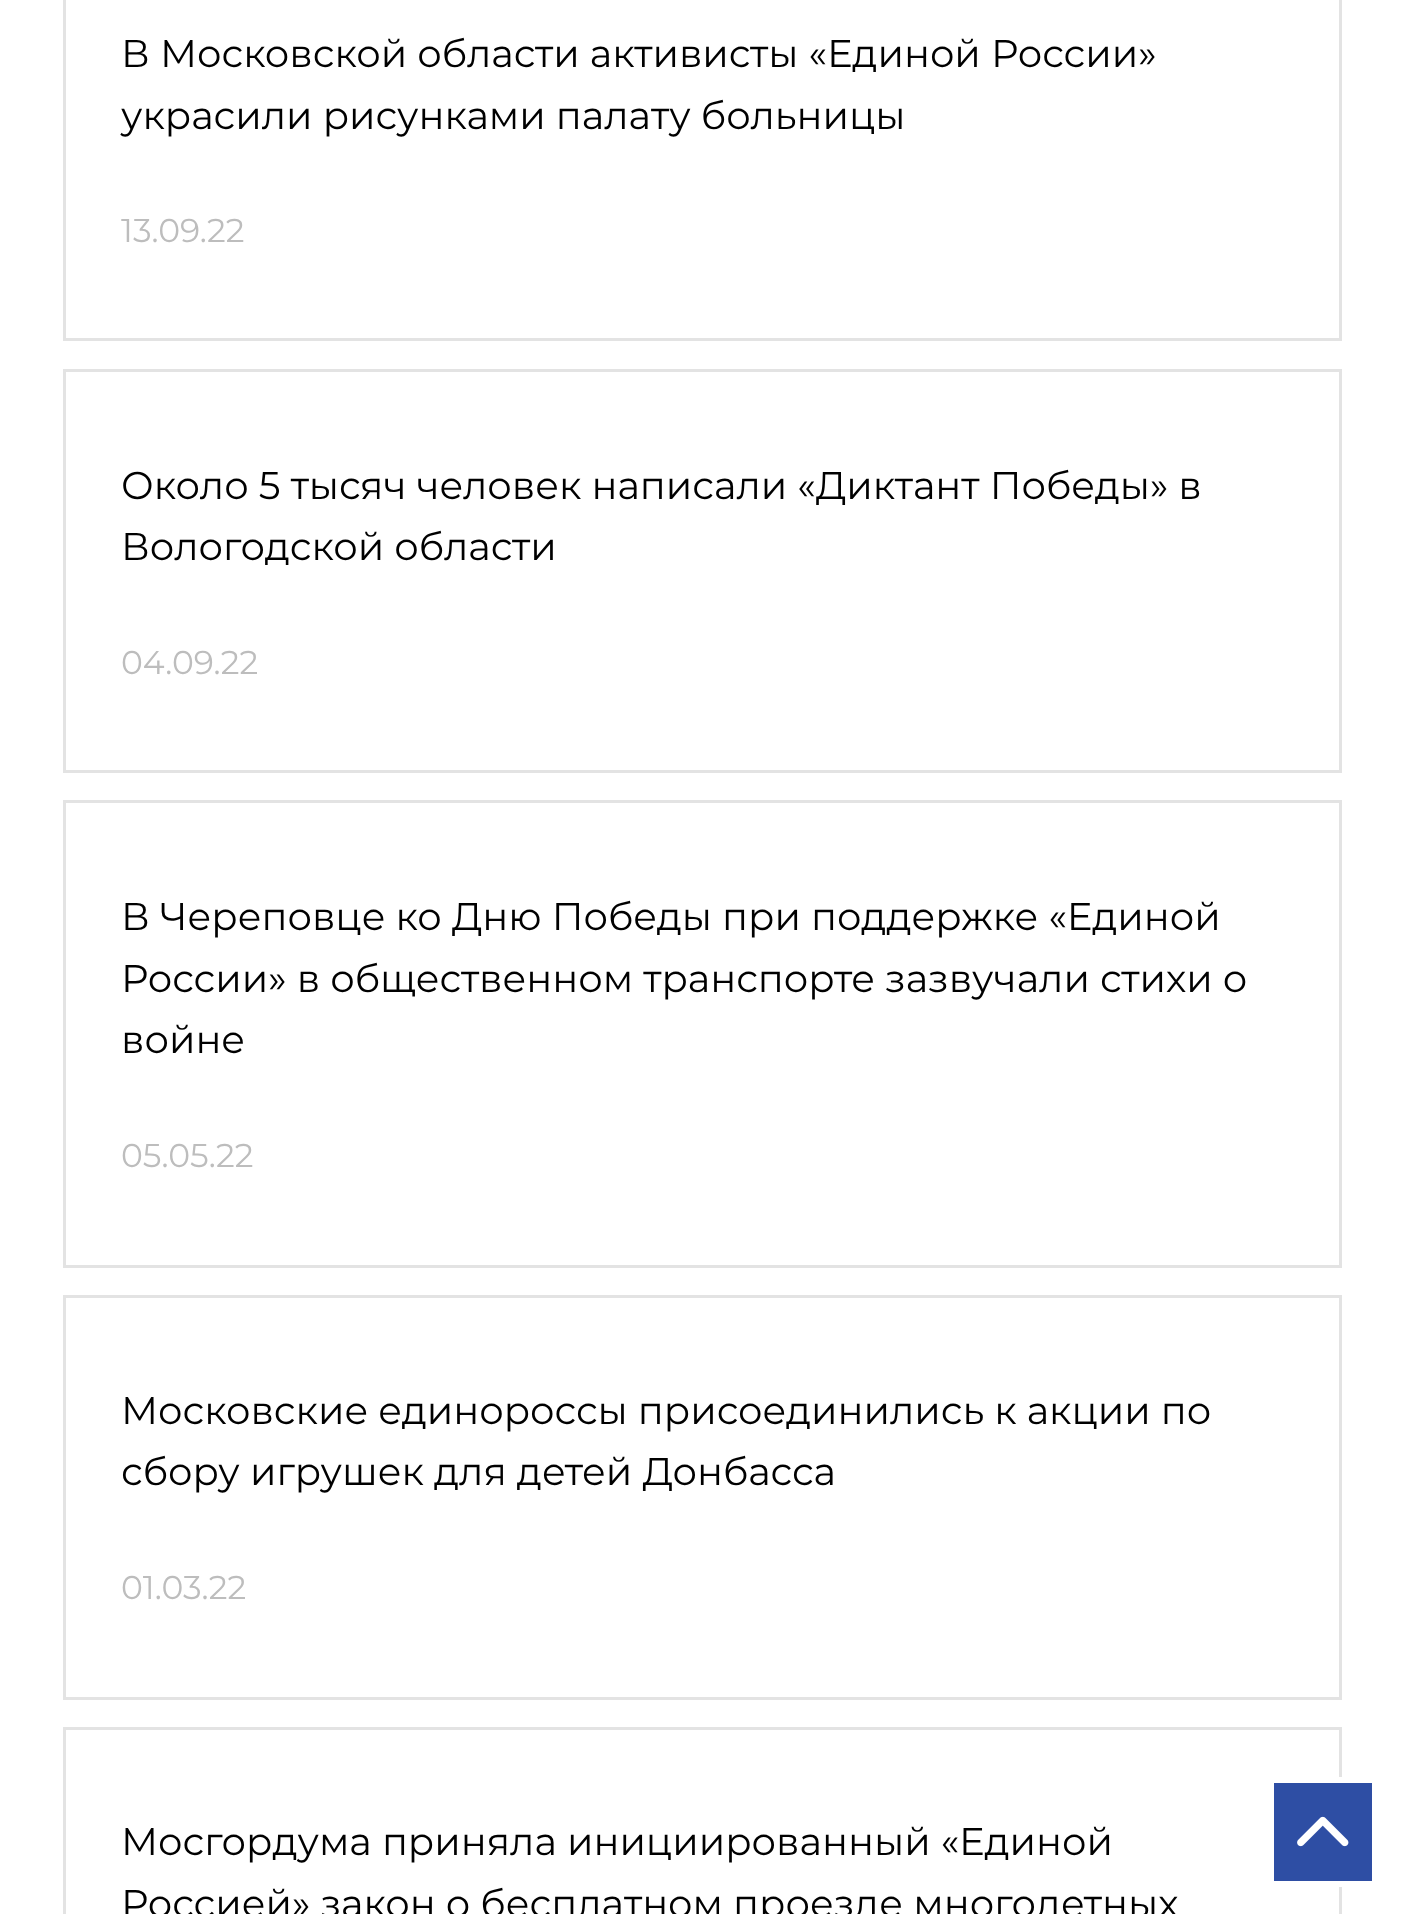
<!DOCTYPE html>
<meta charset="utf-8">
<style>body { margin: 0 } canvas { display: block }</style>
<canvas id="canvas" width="1404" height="1914"></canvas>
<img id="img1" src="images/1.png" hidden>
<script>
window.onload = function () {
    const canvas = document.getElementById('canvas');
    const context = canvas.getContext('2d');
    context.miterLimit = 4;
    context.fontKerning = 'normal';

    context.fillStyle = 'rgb(255, 255, 255)';
    context.fillRect(0, 0, 1404, 1914);
    context.strokeStyle = 'rgb(227, 227, 227)';
    context.lineWidth = 3;
    context.strokeRect(64.5, -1.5, 1276, 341);
    context.strokeRect(64.5, 370.5, 1276, 401);
    context.strokeRect(64.5, 801.5, 1276, 465);
    context.strokeRect(64.5, 1296.5, 1276, 402);
    context.strokeRect(64.5, 1728.5, 1276, 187);
    context.fillStyle = 'rgb(46, 78, 164)';
    context.beginPath();
    context.rect(1271, 1780, 104, 104);
    context.fill();
    context.strokeStyle = 'rgb(255, 255, 255)';
    context.lineWidth = 6;
    context.stroke();
    context.drawImage(document.getElementById('img1'), 1297, 1816, 52, 31);
    context.font = '38.5px Montserrat';
    context.fillStyle = 'rgb(0, 0, 0)';
    context.fillText('В Московской области активисты «Единой России»', 121, 67);
    context.fillText('украсили рисунками палату больницы', 121, 129);
    context.font = '33px Montserrat';
    context.fillStyle = 'rgb(189, 189, 189)';
    context.fillText('13.09.22', 121, 242);
    context.font = '38.5px Montserrat';
    context.fillStyle = 'rgb(0, 0, 0)';
    context.fillText('Около 5 тысяч человек написали «Диктант Победы» в', 121, 499);
    context.fillText('Вологодской области', 121, 560);
    context.font = '33px Montserrat';
    context.fillStyle = 'rgb(189, 189, 189)';
    context.fillText('04.09.22', 121, 674);
    context.font = '38.5px Montserrat';
    context.fillStyle = 'rgb(0, 0, 0)';
    context.fillText('В Череповце ко Дню Победы при поддержке «Единой', 121, 930);
    context.fillText('России» в общественном транспорте зазвучали стихи о', 121, 992);
    context.fillText('войне', 121, 1053);
    context.font = '33px Montserrat';
    context.fillStyle = 'rgb(189, 189, 189)';
    context.fillText('05.05.22', 121, 1167);
    context.font = '38.5px Montserrat';
    context.fillStyle = 'rgb(0, 0, 0)';
    context.fillText('Московские единороссы присоединились к акции по', 121, 1424);
    context.fillText('сбору игрушек для детей Донбасса', 121, 1485);
    context.font = '33px Montserrat';
    context.fillStyle = 'rgb(189, 189, 189)';
    context.fillText('01.03.22', 121, 1599);
    context.font = '38.5px Montserrat';
    context.fillStyle = 'rgb(0, 0, 0)';
    context.fillText('Мосгордума приняла инициированный «Единой', 121, 1855);
    context.fillText('Россией» закон о бесплатном проезде многодетных', 121, 1917);
};
</script>
